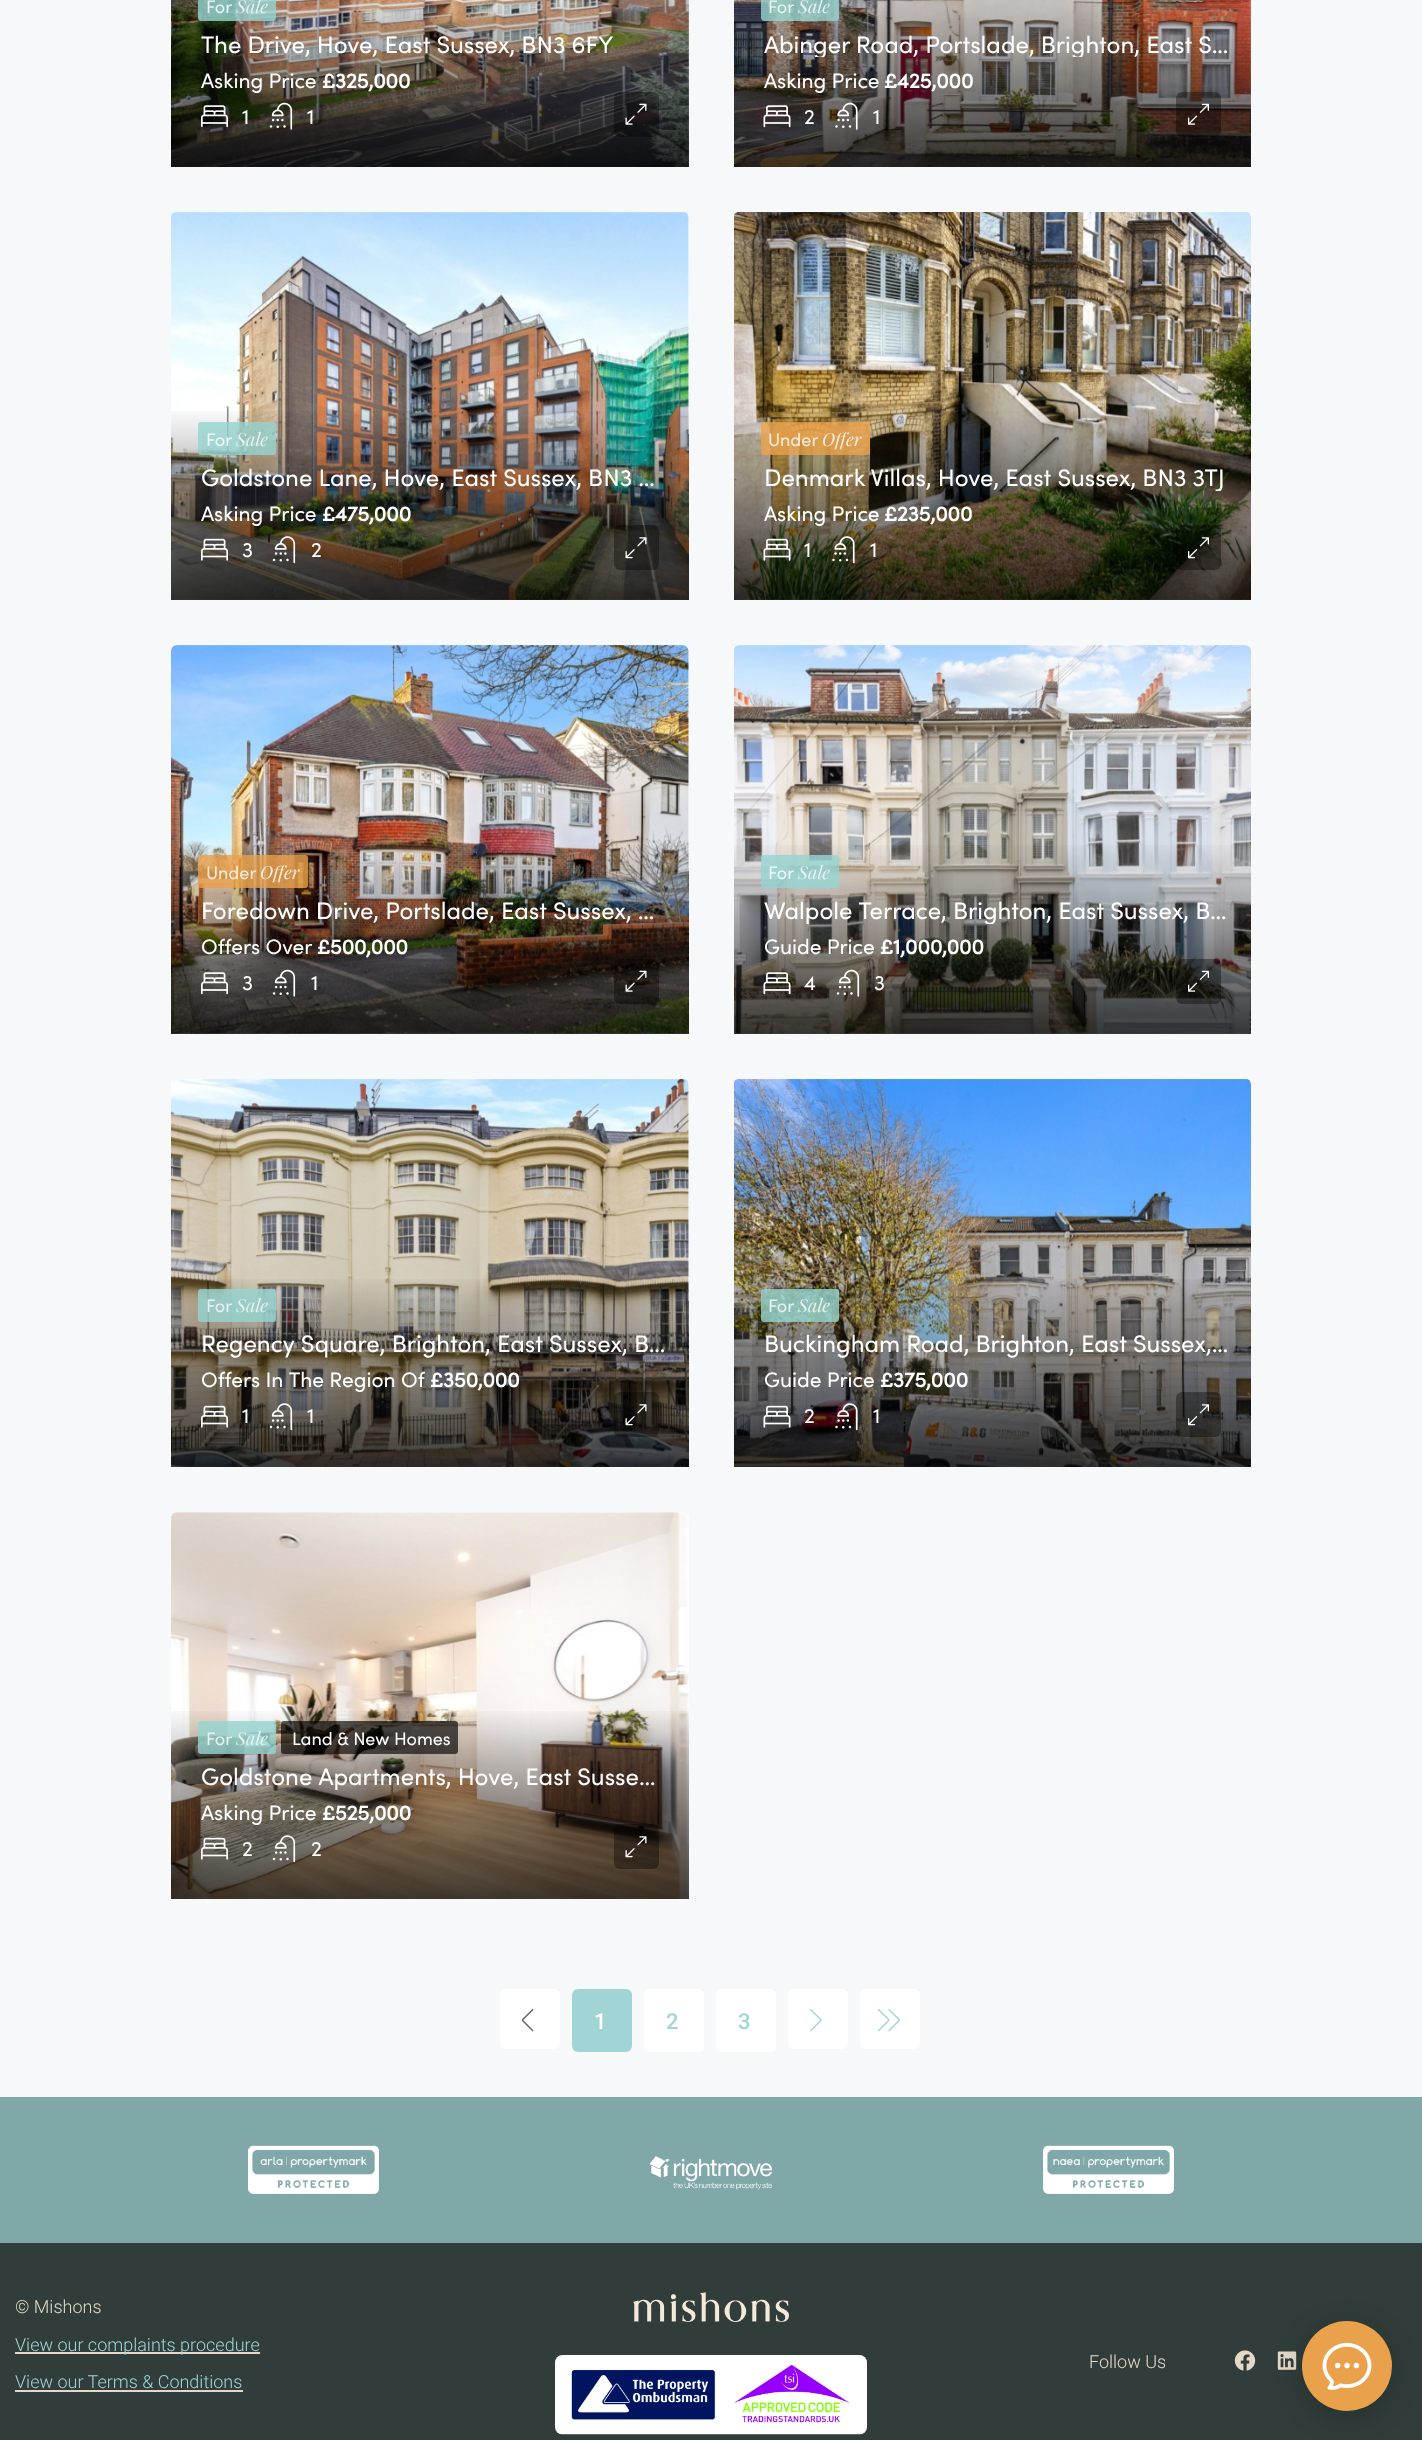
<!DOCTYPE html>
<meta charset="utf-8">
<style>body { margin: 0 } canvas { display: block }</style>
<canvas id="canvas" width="1422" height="2440"></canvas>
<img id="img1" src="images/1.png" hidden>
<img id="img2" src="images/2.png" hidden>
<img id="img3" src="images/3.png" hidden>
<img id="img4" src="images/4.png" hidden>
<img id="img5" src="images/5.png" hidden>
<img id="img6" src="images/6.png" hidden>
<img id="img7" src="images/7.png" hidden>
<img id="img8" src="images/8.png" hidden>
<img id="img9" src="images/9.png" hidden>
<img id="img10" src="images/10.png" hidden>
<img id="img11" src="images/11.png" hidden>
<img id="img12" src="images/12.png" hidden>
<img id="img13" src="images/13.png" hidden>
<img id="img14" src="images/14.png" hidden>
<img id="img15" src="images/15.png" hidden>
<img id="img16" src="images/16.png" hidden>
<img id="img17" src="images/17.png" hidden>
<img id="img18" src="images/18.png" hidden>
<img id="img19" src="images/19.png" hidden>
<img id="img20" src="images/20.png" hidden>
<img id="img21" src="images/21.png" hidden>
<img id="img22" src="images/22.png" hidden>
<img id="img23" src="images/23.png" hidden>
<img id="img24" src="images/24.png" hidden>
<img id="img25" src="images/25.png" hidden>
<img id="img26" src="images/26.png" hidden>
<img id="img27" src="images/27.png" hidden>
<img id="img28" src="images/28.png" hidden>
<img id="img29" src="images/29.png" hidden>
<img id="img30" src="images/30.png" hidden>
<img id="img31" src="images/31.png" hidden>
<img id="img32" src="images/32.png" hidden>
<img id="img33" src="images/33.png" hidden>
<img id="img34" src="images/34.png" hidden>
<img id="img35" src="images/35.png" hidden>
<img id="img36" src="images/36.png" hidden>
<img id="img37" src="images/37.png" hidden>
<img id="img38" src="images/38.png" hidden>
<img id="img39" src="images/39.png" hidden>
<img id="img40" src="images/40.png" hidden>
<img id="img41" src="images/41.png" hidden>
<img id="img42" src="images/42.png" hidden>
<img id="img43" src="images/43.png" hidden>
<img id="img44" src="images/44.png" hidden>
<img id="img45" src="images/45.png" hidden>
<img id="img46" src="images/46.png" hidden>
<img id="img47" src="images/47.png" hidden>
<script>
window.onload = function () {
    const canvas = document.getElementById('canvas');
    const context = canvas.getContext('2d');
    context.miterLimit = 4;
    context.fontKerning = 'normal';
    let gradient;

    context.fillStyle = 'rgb(247, 248, 249)';
    context.fillRect(0, 0, 1422, 2440);
    context.drawImage(document.getElementById('img1'), 171, 0, 518, 167);
    gradient = context.createLinearGradient(430, -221, 430, 167);
    gradient.addColorStop(0, 'rgba(0, 0, 0, 0)');
    gradient.addColorStop(0.5, 'rgba(0, 0, 0, 0)');
    gradient.addColorStop(1, 'rgba(0, 0, 0, 0.75)');
    context.fillStyle = gradient;
    context.fillRect(171, 0, 518, 167);
    context.fillStyle = 'rgba(149, 213, 209, 0.8)';
    context.beginPath();
    context.moveTo(201, -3);
    context.lineTo(236, -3);
    context.lineTo(236, 21);
    context.lineTo(201, 21);
    context.bezierCurveTo(199.5, 21, 198, 19.5, 198, 18);
    context.lineTo(198, 0);
    context.bezierCurveTo(198, -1.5, 199.5, -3, 201, -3);
    context.closePath();
    context.fill();
    context.beginPath();
    context.moveTo(236, -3);
    context.lineTo(273, -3);
    context.bezierCurveTo(274.5, -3, 276, -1.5, 276, 0);
    context.lineTo(276, 18);
    context.bezierCurveTo(276, 19.5, 274.5, 21, 273, 21);
    context.lineTo(236, 21);
    context.closePath();
    context.fill();
    context.drawImage(document.getElementById('img2'), 201, 105, 27, 23);
    context.drawImage(document.getElementById('img3'), 269, 102, 24, 28);
    context.fillStyle = 'rgba(0, 0, 0, 0.35)';
    context.beginPath();
    context.roundRect(614, 92, 45, 45, 6);
    context.fill();
    context.drawImage(document.getElementById('img4'), 625, 103, 22, 22);
    context.drawImage(document.getElementById('img5'), 734, 0, 517, 167);
    gradient = context.createLinearGradient(992, -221, 992, 167);
    gradient.addColorStop(0, 'rgba(0, 0, 0, 0)');
    gradient.addColorStop(0.5, 'rgba(0, 0, 0, 0)');
    gradient.addColorStop(1, 'rgba(0, 0, 0, 0.75)');
    context.fillStyle = gradient;
    context.fillRect(734, 0, 517, 167);
    context.fillStyle = 'rgba(149, 213, 209, 0.8)';
    context.beginPath();
    context.moveTo(764, -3);
    context.lineTo(798, -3);
    context.lineTo(798, 21);
    context.lineTo(764, 21);
    context.bezierCurveTo(762.5, 21, 761, 19.5, 761, 18);
    context.lineTo(761, 0);
    context.bezierCurveTo(761, -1.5, 762.5, -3, 764, -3);
    context.closePath();
    context.fill();
    context.beginPath();
    context.moveTo(798, -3);
    context.lineTo(836, -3);
    context.bezierCurveTo(837.5, -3, 839, -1.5, 839, 0);
    context.lineTo(839, 18);
    context.bezierCurveTo(839, 19.5, 837.5, 21, 836, 21);
    context.lineTo(798, 21);
    context.closePath();
    context.fill();
    context.drawImage(document.getElementById('img6'), 763, 105, 28, 23);
    context.drawImage(document.getElementById('img7'), 835, 102, 23, 28);
    context.fillStyle = 'rgba(0, 0, 0, 0.35)';
    context.beginPath();
    context.roundRect(1176, 92, 45, 45, 6);
    context.fill();
    context.drawImage(document.getElementById('img8'), 1188, 103, 21, 22);
    context.fillStyle = 'rgb(255, 255, 255)';
    context.beginPath();
    context.roundRect(171, 212, 518, 388, 6);
    context.fill();
    context.drawImage(document.getElementById('img9'), 171, 212, 518, 388);
    gradient = context.createLinearGradient(430, 211, 430, 600);
    gradient.addColorStop(0, 'rgba(0, 0, 0, 0)');
    gradient.addColorStop(0.5, 'rgba(0, 0, 0, 0)');
    gradient.addColorStop(1, 'rgba(0, 0, 0, 0.75)');
    context.fillStyle = gradient;
    context.fillRect(171, 411, 518, 189);
    context.fillStyle = 'rgba(149, 213, 209, 0.8)';
    context.beginPath();
    context.roundRect(198, 422, 38, 33, [3, 0, 0, 3]);
    context.fill();
    context.beginPath();
    context.roundRect(236, 422, 40, 33, [0, 3, 3, 0]);
    context.fill();
    context.drawImage(document.getElementById('img10'), 201, 538, 27, 23);
    context.drawImage(document.getElementById('img11'), 272, 536, 24, 28);
    context.fillStyle = 'rgba(0, 0, 0, 0.35)';
    context.beginPath();
    context.roundRect(614, 525, 45, 45, 6);
    context.fill();
    context.drawImage(document.getElementById('img12'), 625, 537, 22, 22);
    context.drawImage(document.getElementById('img13'), 734, 212, 517, 388);
    gradient = context.createLinearGradient(992, 211, 992, 600);
    gradient.addColorStop(0, 'rgba(0, 0, 0, 0)');
    gradient.addColorStop(0.5, 'rgba(0, 0, 0, 0)');
    gradient.addColorStop(1, 'rgba(0, 0, 0, 0.75)');
    context.fillStyle = gradient;
    context.fillRect(734, 411, 517, 189);
    context.fillStyle = 'rgba(234, 161, 75, 0.8)';
    context.beginPath();
    context.roundRect(761, 422, 61, 33, [3, 0, 0, 3]);
    context.fill();
    context.beginPath();
    context.roundRect(822, 422, 48, 33, [0, 3, 3, 0]);
    context.fill();
    context.drawImage(document.getElementById('img14'), 763, 538, 28, 23);
    context.drawImage(document.getElementById('img15'), 832, 536, 23, 28);
    context.fillStyle = 'rgba(0, 0, 0, 0.35)';
    context.beginPath();
    context.roundRect(1176, 525, 45, 45, 6);
    context.fill();
    context.drawImage(document.getElementById('img16'), 1188, 537, 21, 22);
    context.fillStyle = 'rgb(255, 255, 255)';
    context.beginPath();
    context.roundRect(171, 645, 518, 389, 6);
    context.fill();
    context.drawImage(document.getElementById('img17'), 171, 645, 518, 389);
    gradient = context.createLinearGradient(430, 645, 430, 1034);
    gradient.addColorStop(0, 'rgba(0, 0, 0, 0)');
    gradient.addColorStop(0.5, 'rgba(0, 0, 0, 0)');
    gradient.addColorStop(1, 'rgba(0, 0, 0, 0.75)');
    context.fillStyle = gradient;
    context.fillRect(171, 845, 518, 189);
    context.fillStyle = 'rgba(234, 161, 75, 0.8)';
    context.beginPath();
    context.roundRect(198, 855, 62, 33, [3, 0, 0, 3]);
    context.fill();
    context.beginPath();
    context.roundRect(260, 855, 48, 33, [0, 3, 3, 0]);
    context.fill();
    context.drawImage(document.getElementById('img18'), 201, 972, 27, 23);
    context.drawImage(document.getElementById('img19'), 272, 969, 24, 28);
    context.fillStyle = 'rgba(0, 0, 0, 0.35)';
    context.beginPath();
    context.roundRect(614, 959, 45, 45, 6);
    context.fill();
    context.drawImage(document.getElementById('img20'), 625, 970, 22, 22);
    context.fillStyle = 'rgb(255, 255, 255)';
    context.beginPath();
    context.roundRect(734, 645, 517, 389, 6);
    context.fill();
    context.drawImage(document.getElementById('img21'), 734, 645, 517, 389);
    gradient = context.createLinearGradient(992, 645, 992, 1034);
    gradient.addColorStop(0, 'rgba(0, 0, 0, 0)');
    gradient.addColorStop(0.5, 'rgba(0, 0, 0, 0)');
    gradient.addColorStop(1, 'rgba(0, 0, 0, 0.75)');
    context.fillStyle = gradient;
    context.fillRect(734, 845, 517, 189);
    context.fillStyle = 'rgba(149, 213, 209, 0.8)';
    context.beginPath();
    context.roundRect(761, 855, 37, 33, [3, 0, 0, 3]);
    context.fill();
    context.beginPath();
    context.roundRect(798, 855, 41, 33, [0, 3, 3, 0]);
    context.fill();
    context.drawImage(document.getElementById('img22'), 763, 972, 28, 23);
    context.drawImage(document.getElementById('img23'), 836, 969, 24, 28);
    context.fillStyle = 'rgba(0, 0, 0, 0.35)';
    context.beginPath();
    context.roundRect(1176, 959, 45, 45, 6);
    context.fill();
    context.drawImage(document.getElementById('img24'), 1188, 970, 21, 22);
    context.fillStyle = 'rgb(255, 255, 255)';
    context.beginPath();
    context.roundRect(171, 1079, 518, 388, 6);
    context.fill();
    context.drawImage(document.getElementById('img25'), 171, 1079, 518, 388);
    gradient = context.createLinearGradient(430, 1079, 430, 1467);
    gradient.addColorStop(0, 'rgba(0, 0, 0, 0)');
    gradient.addColorStop(0.5, 'rgba(0, 0, 0, 0)');
    gradient.addColorStop(1, 'rgba(0, 0, 0, 0.75)');
    context.fillStyle = gradient;
    context.fillRect(171, 1279, 518, 188);
    context.fillStyle = 'rgba(149, 213, 209, 0.8)';
    context.beginPath();
    context.roundRect(198, 1289, 38, 33, [3, 0, 0, 3]);
    context.fill();
    context.beginPath();
    context.roundRect(236, 1289, 40, 33, [0, 3, 3, 0]);
    context.fill();
    context.drawImage(document.getElementById('img26'), 201, 1405, 27, 23);
    context.drawImage(document.getElementById('img27'), 269, 1403, 24, 28);
    context.fillStyle = 'rgba(0, 0, 0, 0.35)';
    context.beginPath();
    context.roundRect(614, 1392, 45, 45, 6);
    context.fill();
    context.drawImage(document.getElementById('img28'), 625, 1404, 22, 22);
    context.drawImage(document.getElementById('img29'), 734, 1079, 517, 388);
    gradient = context.createLinearGradient(992, 1079, 992, 1467);
    gradient.addColorStop(0, 'rgba(0, 0, 0, 0)');
    gradient.addColorStop(0.5, 'rgba(0, 0, 0, 0)');
    gradient.addColorStop(1, 'rgba(0, 0, 0, 0.75)');
    context.fillStyle = gradient;
    context.fillRect(734, 1279, 517, 188);
    context.fillStyle = 'rgba(149, 213, 209, 0.8)';
    context.beginPath();
    context.roundRect(761, 1289, 37, 33, [3, 0, 0, 3]);
    context.fill();
    context.beginPath();
    context.roundRect(798, 1289, 41, 33, [0, 3, 3, 0]);
    context.fill();
    context.drawImage(document.getElementById('img30'), 763, 1405, 28, 23);
    context.drawImage(document.getElementById('img31'), 835, 1403, 23, 28);
    context.fillStyle = 'rgba(0, 0, 0, 0.35)';
    context.beginPath();
    context.roundRect(1176, 1392, 45, 45, 6);
    context.fill();
    context.drawImage(document.getElementById('img32'), 1188, 1404, 21, 22);
    context.fillStyle = 'rgb(255, 255, 255)';
    context.beginPath();
    context.roundRect(171, 1512, 518, 387, 6);
    context.fill();
    context.drawImage(document.getElementById('img33'), 171, 1512, 518, 387);
    gradient = context.createLinearGradient(430, 1512, 430, 1899);
    gradient.addColorStop(0, 'rgba(0, 0, 0, 0)');
    gradient.addColorStop(0.5, 'rgba(0, 0, 0, 0)');
    gradient.addColorStop(1, 'rgba(0, 0, 0, 0.75)');
    context.fillStyle = gradient;
    context.fillRect(171, 1711, 518, 188);
    context.fillStyle = 'rgba(149, 213, 209, 0.8)';
    context.beginPath();
    context.roundRect(198, 1721, 38, 33, [3, 0, 0, 3]);
    context.fill();
    context.beginPath();
    context.roundRect(236, 1721, 40, 33, [0, 3, 3, 0]);
    context.fill();
    context.fillStyle = 'rgba(0, 0, 0, 0.65)';
    context.beginPath();
    context.roundRect(281, 1721, 177, 33, 3);
    context.fill();
    context.drawImage(document.getElementById('img34'), 201, 1837, 27, 23);
    context.drawImage(document.getElementById('img35'), 272, 1835, 24, 28);
    context.fillStyle = 'rgba(0, 0, 0, 0.35)';
    context.beginPath();
    context.roundRect(614, 1824, 45, 45, 6);
    context.fill();
    context.drawImage(document.getElementById('img36'), 625, 1836, 22, 22);
    context.fillStyle = 'rgb(255, 255, 255)';
    context.beginPath();
    context.roundRect(500, 1989, 60, 60, 6);
    context.fill();
    context.drawImage(document.getElementById('img37'), 521, 2008, 13, 24);
    context.fillStyle = 'rgb(161, 213, 213)';
    context.beginPath();
    context.roundRect(573, 1990, 58, 61, 5);
    context.fill();
    context.strokeStyle = 'rgb(161, 213, 213)';
    context.lineWidth = 2;
    context.stroke();
    context.fillStyle = 'rgb(255, 255, 255)';
    context.beginPath();
    context.roundRect(644, 1989, 60, 63, 6);
    context.fill();
    context.beginPath();
    context.roundRect(716, 1989, 60, 63, 6);
    context.fill();
    context.beginPath();
    context.roundRect(788, 1989, 60, 60, 6);
    context.fill();
    context.drawImage(document.getElementById('img38'), 810, 2008, 12, 24);
    context.beginPath();
    context.roundRect(860, 1989, 60, 60, 6);
    context.fill();
    context.drawImage(document.getElementById('img39'), 877, 2008, 23, 24);
    context.fillStyle = 'rgb(128, 168, 168)';
    context.fillRect(0, 2097, 1422, 146);
    context.drawImage(document.getElementById('img40'), 248, 2145, 131, 49);
    context.drawImage(document.getElementById('img41'), 649, 2156, 123, 34);
    context.drawImage(document.getElementById('img42'), 1043, 2145, 131, 49);
    context.fillStyle = 'rgb(48, 61, 58)';
    context.fillRect(0, 2243, 1422, 197);
    context.fillStyle = 'rgb(227, 217, 198)';
    context.fillRect(15, 2352, 245, 2);
    context.fillRect(15, 2390, 228, 2);
    context.drawImage(document.getElementById('img43'), 633, 2292, 156, 30);
    context.drawImage(document.getElementById('img44'), 555, 2355, 312, 80);
    context.drawImage(document.getElementById('img45'), 1234, 2350, 22, 21);
    context.drawImage(document.getElementById('img46'), 1277, 2351, 20, 19);
    context.fillStyle = 'rgba(0, 0, 0, 0.2)';
    context.filter = 'blur(14px)';
    context.beginPath();
    context.roundRect(1302, 2327, 90, 90, 45);
    context.fill();
    context.filter = 'none';
    context.fillStyle = 'rgb(233, 161, 75)';
    context.beginPath();
    context.arc(1347, 2366, 45, 0, 2 * Math.PI);
    context.fill();
    context.drawImage(document.getElementById('img47'), 1322, 2343, 50, 47);
    context.font = '18px Sofia';
    context.fillStyle = 'rgb(231, 241, 239)';
    context.fillText('For', 206, 13);
    context.font = 'italic 18px Playfair Display';
    context.fillText('Sale', 236, 13);
    context.font = '24px Sofia';
    context.fillStyle = 'rgb(255, 255, 255)';
    context.fillText('The Drive, Hove, East Sussex, BN3 6FY', 201, 53);
    context.font = '21px Sofia';
    context.fillText('Asking Price', 201, 88);
    context.font = 'bold 21px Sofia';
    context.fillText('£325,000', 322, 88);
    context.font = '21px Sofia';
    context.fillText('1', 242, 124);
    context.fillText('1', 307, 124);
    context.font = '18px Sofia';
    context.fillStyle = 'rgb(231, 241, 239)';
    context.fillText('For', 768, 13);
    context.font = 'italic 18px Playfair Display';
    context.fillText('Sale', 798, 13);
    context.save();
    context.beginPath();
    context.rect(764, 29, 466, 28);
    context.clip();
    context.font = '24px Sofia';
    context.fillStyle = 'rgb(255, 255, 255)';
    context.fillText('Abinger Road, Portslade, Brighton, East S…', 764, 53);
    context.restore();
    context.font = '21px Sofia';
    context.fillStyle = 'rgb(255, 255, 255)';
    context.fillText('Asking Price', 764, 88);
    context.font = 'bold 21px Sofia';
    context.fillText('£425,000', 884, 88);
    context.font = '21px Sofia';
    context.fillText('2', 804, 124);
    context.fillText('1', 873, 124);
    context.font = '18px Sofia';
    context.fillStyle = 'rgb(236, 247, 246)';
    context.fillText('For', 206, 446);
    context.font = 'italic 18px Playfair Display';
    context.fillStyle = 'rgb(231, 241, 239)';
    context.fillText('Sale', 236, 446);
    context.font = '24px Sofia';
    context.fillStyle = 'rgb(255, 255, 255)';
    context.fillText('Goldstone Lane, Hove, East Sussex, BN3 …', 201, 486);
    context.font = '21px Sofia';
    context.fillText('Asking Price', 201, 521);
    context.font = 'bold 21px Sofia';
    context.fillText('£475,000', 322, 521);
    context.font = '21px Sofia';
    context.fillText('3', 242, 557);
    context.fillText('2', 311, 557);
    context.font = '18px Sofia';
    context.fillStyle = 'rgb(248, 235, 219)';
    context.fillText('Under', 768, 446);
    context.font = 'italic 18px Playfair Display';
    context.fillText('Offer', 822, 446);
    context.save();
    context.beginPath();
    context.rect(764, 462, 460, 29);
    context.clip();
    context.font = '24px Sofia';
    context.fillStyle = 'rgb(255, 255, 255)';
    context.fillText('Denmark Villas, Hove, East Sussex, BN3 3TJ', 764, 486);
    context.restore();
    context.font = '21px Sofia';
    context.fillStyle = 'rgb(255, 255, 255)';
    context.fillText('Asking Price', 764, 521);
    context.font = 'bold 21px Sofia';
    context.fillText('£235,000', 884, 521);
    context.font = '21px Sofia';
    context.fillText('1', 804, 557);
    context.fillText('1', 870, 557);
    context.font = '18px Sofia';
    context.fillStyle = 'rgb(248, 235, 219)';
    context.fillText('Under', 206, 879);
    context.font = 'italic 18px Playfair Display';
    context.fillText('Offer', 260, 879);
    context.font = '24px Sofia';
    context.fillStyle = 'rgb(255, 255, 255)';
    context.fillText('Foredown Drive, Portslade, East Sussex, …', 201, 919);
    context.font = '21px Sofia';
    context.fillText('Offers Over', 201, 954);
    context.font = 'bold 21px Sofia';
    context.fillText('£500,000', 317, 954);
    context.font = '21px Sofia';
    context.fillText('3', 242, 990);
    context.fillText('1', 311, 990);
    context.font = '18px Sofia';
    context.fillStyle = 'rgb(236, 247, 246)';
    context.fillText('For', 768, 879);
    context.font = 'italic 18px Playfair Display';
    context.fillStyle = 'rgb(231, 241, 239)';
    context.fillText('Sale', 798, 879);
    context.save();
    context.beginPath();
    context.rect(764, 896, 466, 28);
    context.clip();
    context.font = '24px Sofia';
    context.fillStyle = 'rgb(255, 255, 255)';
    context.fillText('Walpole Terrace, Brighton, East Sussex, B…', 764, 919);
    context.restore();
    context.font = '21px Sofia';
    context.fillStyle = 'rgb(255, 255, 255)';
    context.fillText('Guide Price', 764, 954);
    context.font = 'bold 21px Sofia';
    context.fillText('£1,000,000', 880, 954);
    context.font = '21px Sofia';
    context.fillText('4', 804, 990);
    context.fillText('3', 874, 990);
    context.font = '18px Sofia';
    context.fillStyle = 'rgb(231, 241, 239)';
    context.fillText('For', 206, 1312);
    context.font = 'italic 18px Playfair Display';
    context.fillText('Sale', 236, 1312);
    context.font = '24px Sofia';
    context.fillStyle = 'rgb(255, 255, 255)';
    context.fillText('Regency Square, Brighton, East Sussex, B…', 201, 1352);
    context.font = '21px Sofia';
    context.fillText('Offers In The Region Of', 201, 1387);
    context.font = 'bold 21px Sofia';
    context.fillText('£350,000', 430, 1387);
    context.font = '21px Sofia';
    context.fillText('1', 242, 1423);
    context.fillText('1', 307, 1423);
    context.font = '18px Sofia';
    context.fillStyle = 'rgb(231, 241, 239)';
    context.fillText('For', 768, 1312);
    context.font = 'italic 18px Playfair Display';
    context.fillText('Sale', 798, 1312);
    context.font = '24px Sofia';
    context.fillStyle = 'rgb(255, 255, 255)';
    context.fillText('Buckingham Road, Brighton, East Sussex,…', 764, 1352);
    context.font = '21px Sofia';
    context.fillText('Guide Price', 764, 1387);
    context.font = 'bold 21px Sofia';
    context.fillText('£375,000', 880, 1387);
    context.font = '21px Sofia';
    context.fillText('2', 804, 1423);
    context.fillText('1', 873, 1423);
    context.font = '18px Sofia';
    context.fillStyle = 'rgb(231, 241, 239)';
    context.fillText('For', 206, 1745);
    context.font = 'italic 18px Playfair Display';
    context.fillText('Sale', 236, 1745);
    context.font = '18px Sofia';
    context.fillStyle = 'rgb(255, 255, 255)';
    context.fillText('Land & New Homes', 292, 1745);
    context.save();
    context.beginPath();
    context.rect(201, 1761, 467, 29);
    context.clip();
    context.font = '24px Sofia';
    context.fillText('Goldstone Apartments, Hove, East Susse…', 201, 1785);
    context.restore();
    context.font = '21px Sofia';
    context.fillText('Asking Price', 201, 1820);
    context.font = 'bold 21px Sofia';
    context.fillText('£525,000', 322, 1820);
    context.font = '21px Sofia';
    context.fillText('2', 242, 1856);
    context.fillText('2', 311, 1856);
    context.font = '500 22px Roboto';
    context.fillText('1', 594, 2029);
    context.fillStyle = 'rgb(161, 213, 213)';
    context.fillText('2', 666, 2029);
    context.fillText('3', 738, 2029);
    context.font = '300 18px Roboto';
    context.fillStyle = 'rgb(227, 217, 198)';
    context.fillText('© Mishons', 15, 2313);
    context.fillStyle = 'rgb(161, 213, 213)';
    context.fillText('View our complaints procedure', 15, 2351);
    context.fillText('View our Terms & Conditions', 15, 2388);
    context.fillStyle = 'rgb(227, 217, 198)';
    context.fillText('Follow Us', 1089, 2368);
};
</script>
